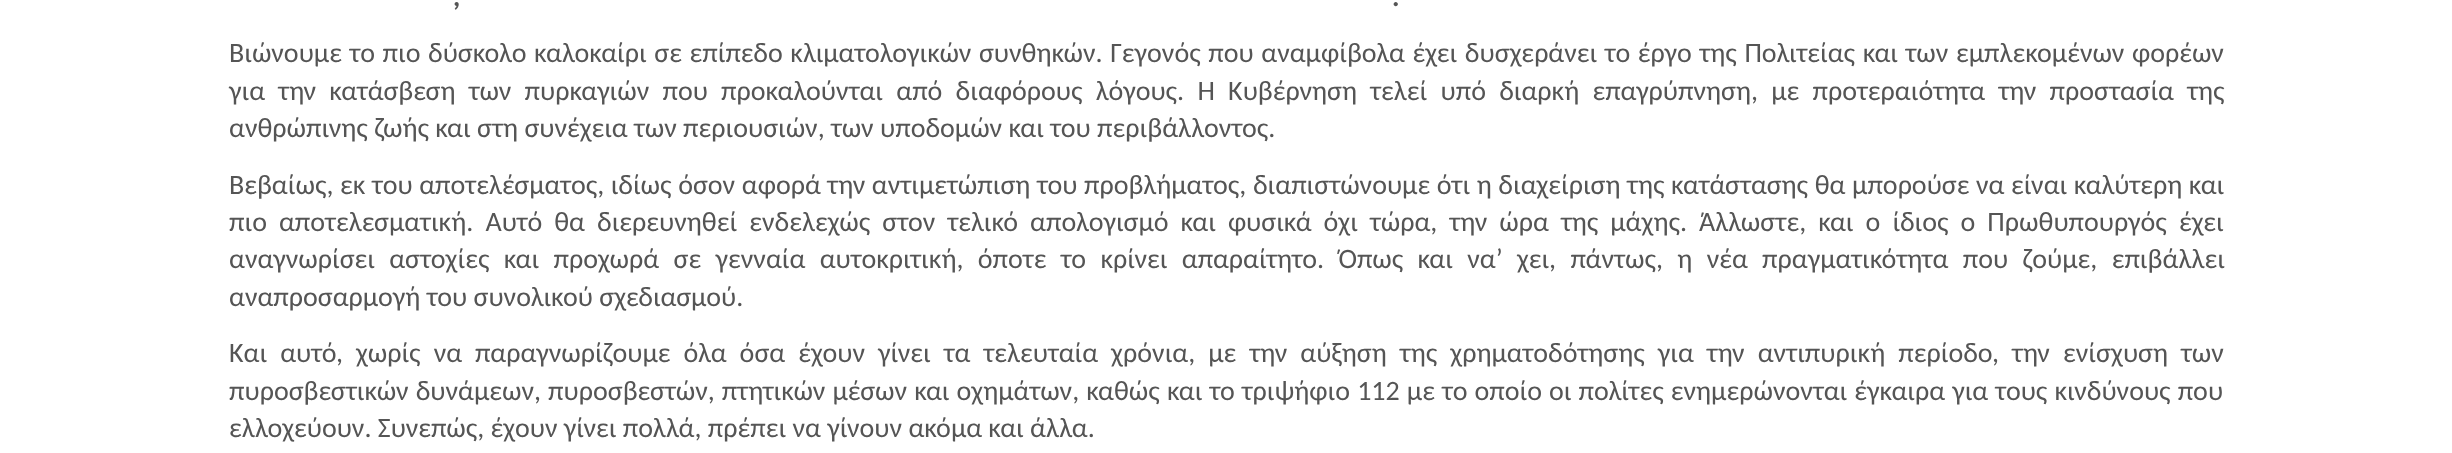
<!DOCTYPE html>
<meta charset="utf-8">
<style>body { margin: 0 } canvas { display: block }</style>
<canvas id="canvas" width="2452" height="453"></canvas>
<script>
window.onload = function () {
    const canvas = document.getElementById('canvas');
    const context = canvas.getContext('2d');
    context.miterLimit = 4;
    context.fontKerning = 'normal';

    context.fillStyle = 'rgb(255, 255, 255)';
    context.fillRect(0, 0, 2452, 453);
    context.font = 'bold 28px Carlito';
    context.fillStyle = 'rgb(85, 85, 85)';
    context.fillText(',', 453, 6);
    context.fillText('.', 1392, 6);
    context.wordSpacing = '1.25px';
    context.font = '28px Carlito';
    context.fillText('Βιώνουμε το πιο δύσκολο καλοκαίρι σε επίπεδο κλιματολογικών συνθηκών. Γεγονός που αναμφίβολα έχει δυσχεράνει το έργο της Πολιτείας και των εμπλεκομένων φορέων', 229, 62);
    context.wordSpacing = '6.9px';
    context.fillText('για την κατάσβεση των πυρκαγιών που προκαλούνται από διαφόρους λόγους. Η Κυβέρνηση τελεί υπό διαρκή επαγρύπνηση, με προτεραιότητα την προστασία της', 229, 100);
    context.wordSpacing = '0px';
    context.fillText('ανθρώπινης ζωής και στη συνέχεια των περιουσιών, των υποδομών και του περιβάλλοντος.', 229, 137);
    context.wordSpacing = '0.25px';
    context.fillText('Βεβαίως, εκ του αποτελέσματος, ιδίως όσον αφορά την αντιμετώπιση του προβλήματος, διαπιστώνουμε ότι η διαχείριση της κατάστασης θα μπορούσε να είναι καλύτερη και', 229, 194);
    context.wordSpacing = '5.7px';
    context.fillText('πιο αποτελεσματική. Αυτό θα διερευνηθεί ενδελεχώς στον τελικό απολογισμό και φυσικά όχι τώρα, την ώρα της μάχης. Άλλωστε, και ο ίδιος ο Πρωθυπουργός έχει', 229, 231);
    context.wordSpacing = '8px';
    context.fillText('αναγνωρίσει αστοχίες και προχωρά σε γενναία αυτοκριτική, όποτε το κρίνει απαραίτητο. Όπως και να’ χει, πάντως, η νέα πραγματικότητα που ζούμε, επιβάλλει', 229, 268);
    context.wordSpacing = '0px';
    context.fillText('αναπροσαρμογή του συνολικού σχεδιασμού.', 229, 306);
    context.wordSpacing = '6.7px';
    context.fillText('Και αυτό, χωρίς να παραγνωρίζουμε όλα όσα έχουν γίνει τα τελευταία χρόνια, με την αύξηση της χρηματοδότησης για την αντιπυρική περίοδο, την ενίσχυση των', 229, 362);
    context.wordSpacing = '0.75px';
    context.fillText('πυροσβεστικών δυνάμεων, πυροσβεστών, πτητικών μέσων και οχημάτων, καθώς και το τριψήφιο 112 με το οποίο οι πολίτες ενημερώνονται έγκαιρα για τους κινδύνους που', 229, 400);
    context.wordSpacing = '0px';
    context.fillText('ελλοχεύουν. Συνεπώς, έχουν γίνει πολλά, πρέπει να γίνουν ακόμα και άλλα.', 229, 437);
};
</script>
